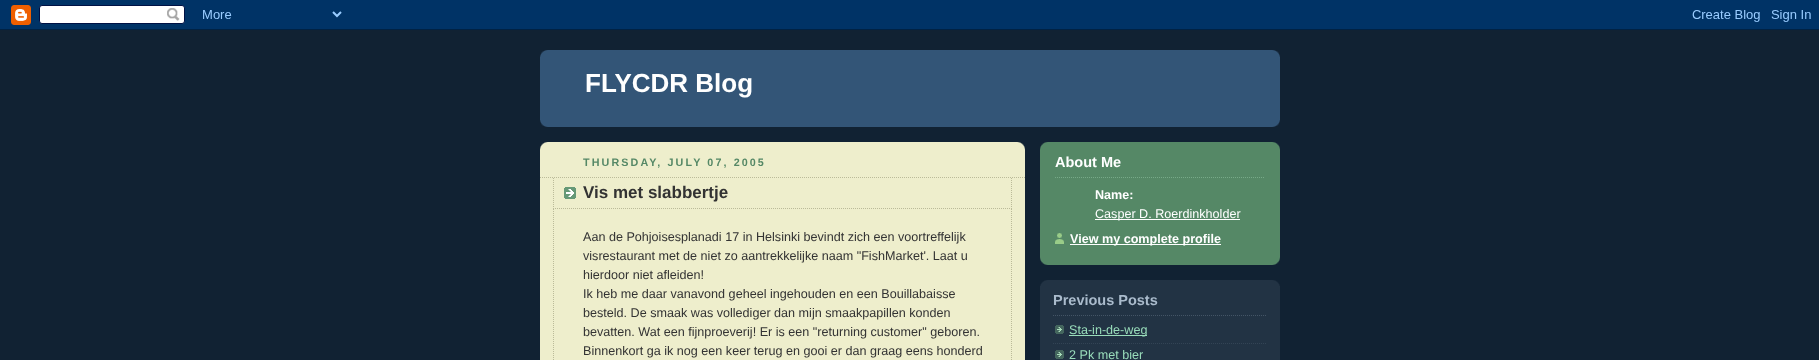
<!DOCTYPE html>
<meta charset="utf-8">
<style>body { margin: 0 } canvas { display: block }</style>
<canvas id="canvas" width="1819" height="360"></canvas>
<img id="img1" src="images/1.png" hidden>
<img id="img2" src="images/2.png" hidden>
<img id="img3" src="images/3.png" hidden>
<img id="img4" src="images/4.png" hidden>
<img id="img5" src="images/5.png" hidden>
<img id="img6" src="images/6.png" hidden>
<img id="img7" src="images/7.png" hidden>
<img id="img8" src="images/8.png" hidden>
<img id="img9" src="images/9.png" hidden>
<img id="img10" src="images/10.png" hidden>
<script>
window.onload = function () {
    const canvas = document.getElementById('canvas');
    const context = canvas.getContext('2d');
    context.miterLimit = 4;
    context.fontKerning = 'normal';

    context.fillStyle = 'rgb(17, 34, 51)';
    context.fillRect(0, 0, 1819, 360);
    context.drawImage(document.getElementById('img1'), 0, 0, 1819, 30);
    context.fillStyle = 'rgb(51, 85, 119)';
    context.fillRect(540, 50, 740, 77);
    context.drawImage(document.getElementById('img2'), 540, 120, 740, 7);
    context.drawImage(document.getElementById('img3'), 540, 50, 740, 7);
    context.fillStyle = 'rgb(238, 238, 204)';
    context.fillRect(540, 142, 485, 218);
    context.drawImage(document.getElementById('img4'), 540, 142, 485, 8);
    context.beginPath();
    context.moveTo(540, 177.5);
    context.lineTo(1025, 177.5);
    context.strokeStyle = 'rgb(187, 187, 153)';
    context.setLineDash([1, 1]);
    context.stroke();
    context.drawImage(document.getElementById('img5'), 564, 187, 12, 12);
    context.beginPath();
    context.moveTo(1011.5, 178);
    context.lineTo(1011.5, 209);
    context.stroke();
    context.beginPath();
    context.moveTo(553, 208.5);
    context.lineTo(1012, 208.5);
    context.stroke();
    context.beginPath();
    context.moveTo(553.5, 178);
    context.lineTo(553.5, 209);
    context.stroke();
    context.beginPath();
    context.moveTo(1011.5, 209);
    context.lineTo(1011.5, 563);
    context.stroke();
    context.beginPath();
    context.moveTo(553.5, 209);
    context.lineTo(553.5, 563);
    context.stroke();
    context.fillStyle = 'rgb(85, 136, 102)';
    context.fillRect(1040, 142, 240, 123);
    context.drawImage(document.getElementById('img6'), 1040, 257, 240, 8);
    context.drawImage(document.getElementById('img7'), 1040, 142, 240, 8);
    context.beginPath();
    context.moveTo(1055, 177.5);
    context.lineTo(1265, 177.5);
    context.strokeStyle = 'rgb(119, 170, 136)';
    context.stroke();
    context.fillStyle = 'rgb(255, 255, 255)';
    context.fillRect(1095, 219, 145, 1);
    context.drawImage(document.getElementById('img8'), 1055, 233, 9, 11);
    context.fillRect(1070, 244, 151, 1);
    context.fillStyle = 'rgb(34, 51, 68)';
    context.fillRect(1040, 280, 240, 80);
    context.drawImage(document.getElementById('img9'), 1040, 280, 240, 6);
    context.beginPath();
    context.moveTo(1053, 315.5);
    context.lineTo(1267, 315.5);
    context.strokeStyle = 'rgb(68, 85, 102)';
    context.stroke();
    context.drawImage(document.getElementById('img10'), 1055, 325, 9, 9);
    context.beginPath();
    context.moveTo(1053, 343.5);
    context.lineTo(1267, 343.5);
    context.strokeStyle = 'rgb(51, 68, 85)';
    context.stroke();
    context.fillStyle = 'rgb(153, 221, 187)';
    context.fillRect(1069, 335, 78, 1);
    context.drawImage(document.getElementById('img10'), 1055, 350, 9, 9);
    context.font = 'bold 26px Liberation Sans';
    context.fillStyle = 'rgb(255, 255, 255)';
    context.fillText('FLYCDR Blog', 585, 92);
    context.letterSpacing = '2.1px';
    context.font = 'bold 10.75px Liberation Sans';
    context.fillStyle = 'rgb(85, 136, 102)';
    context.fillText('THURSDAY, JULY 07, 2005', 583, 166);
    context.letterSpacing = '0px';
    context.font = 'bold 17px Liberation Sans';
    context.fillStyle = 'rgb(51, 51, 51)';
    context.fillText('Vis met slabbertje', 583, 198);
    context.font = '12.6px Liberation Sans';
    context.fillText('Aan de Pohjoisesplanadi 17 in Helsinki bevindt zich een voortreffelijk', 583, 241);
    context.fillText('visrestaurant met de niet zo aantrekkelijke naam "FishMarket\'. Laat u', 583, 260);
    context.fillText('hierdoor niet afleiden!', 583, 279);
    context.fillText('Ik heb me daar vanavond geheel ingehouden en een Bouillabaisse', 583, 298);
    context.fillText('besteld. De smaak was vollediger dan mijn smaakpapillen konden', 583, 317);
    context.fillText('bevatten. Wat een fijnproeverij! Er is een "returning customer" geboren.', 583, 336);
    context.fillText('Binnenkort ga ik nog een keer terug en gooi er dan graag eens honderd', 583, 355);
    context.font = 'bold 14.5px Liberation Sans';
    context.fillStyle = 'rgb(255, 255, 255)';
    context.fillText('About Me', 1055, 167);
    context.font = 'bold 12.6px Liberation Sans';
    context.fillText('Name:', 1095, 199);
    context.font = '12.6px Liberation Sans';
    context.fillText('Casper D. Roerdinkholder', 1095, 218);
    context.font = 'bold 12.6px Liberation Sans';
    context.fillText('View my complete profile', 1070, 243);
    context.font = 'bold 14.5px Liberation Sans';
    context.fillStyle = 'rgb(170, 187, 204)';
    context.fillText('Previous Posts', 1053, 305);
    context.font = '12.6px Liberation Sans';
    context.fillStyle = 'rgb(153, 221, 187)';
    context.fillText('Sta-in-de-weg', 1069, 334);
    context.fillText('2 Pk met bier', 1069, 359);
};
</script>
